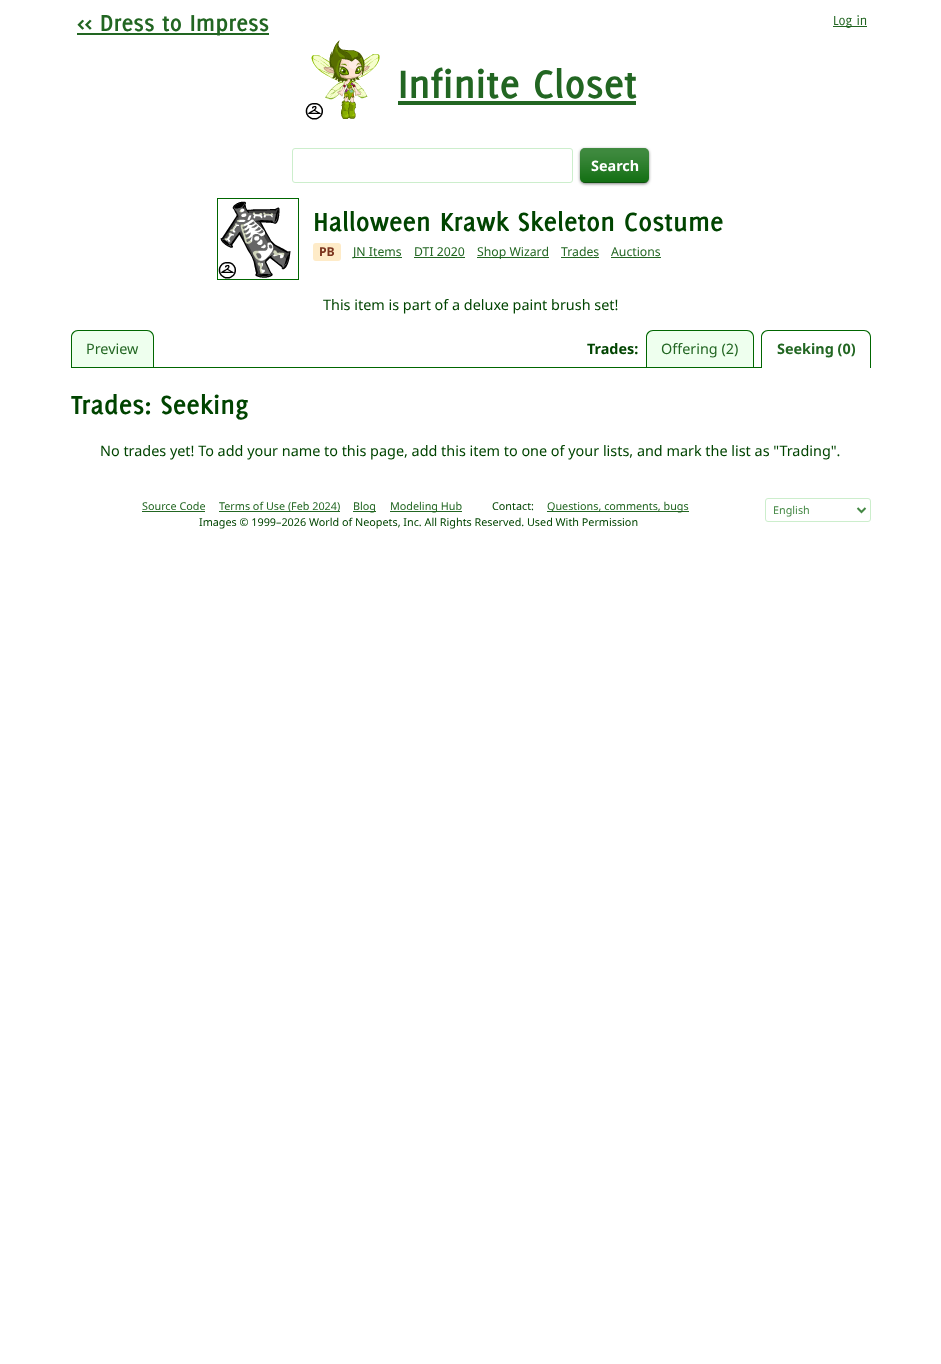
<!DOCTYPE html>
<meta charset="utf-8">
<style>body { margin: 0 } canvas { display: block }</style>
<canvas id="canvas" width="941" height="1364"></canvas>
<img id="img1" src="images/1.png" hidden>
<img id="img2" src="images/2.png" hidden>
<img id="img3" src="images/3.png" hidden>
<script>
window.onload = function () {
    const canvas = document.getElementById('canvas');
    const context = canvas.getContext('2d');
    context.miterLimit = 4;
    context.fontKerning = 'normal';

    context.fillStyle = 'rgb(255, 255, 255)';
    context.fillRect(0, 0, 941, 1364);
    context.fillStyle = 'rgb(34, 102, 34)';
    context.fillRect(77, 33, 192, 2);
    context.fillRect(833, 26, 34, 1);
    context.drawImage(document.getElementById('img1'), 305, 40, 75, 80);
    context.fillRect(398, 101, 238, 4);
    context.beginPath();
    context.roundRect(292.5, 148.5, 280, 34, 2.5);
    context.strokeStyle = 'rgb(204, 238, 204)';
    context.stroke();
    context.fillStyle = 'rgba(0, 0, 0, 0.5)';
    context.filter = 'blur(1.5px)';
    context.beginPath();
    context.roundRect(580, 149, 69, 35, 5);
    context.fill();
    context.filter = 'none';
    context.fillStyle = 'rgb(0, 100, 0)';
    context.beginPath();
    context.roundRect(580, 148, 69, 35, 5);
    context.fill();
    context.drawImage(document.getElementById('img2'), 580, 148, 69, 35);
    context.fillStyle = 'rgba(0, 0, 0, 0.25)';
    context.fillRect(583, 182, 64, 1);
    context.fillStyle = 'rgb(0, 102, 0)';
    context.fillRect(71, 367, 690, 1);
    context.strokeStyle = 'rgb(0, 102, 0)';
    context.strokeRect(217.5, 198.5, 81, 81);
    context.drawImage(document.getElementById('img3'), 218, 201, 73, 78);
    context.fillStyle = 'rgb(254, 235, 200)';
    context.beginPath();
    context.roundRect(313, 243, 28, 18, 3);
    context.fill();
    context.fillStyle = 'rgb(34, 102, 34)';
    context.fillRect(353, 257, 49, 1);
    context.fillRect(414, 257, 51, 1);
    context.fillRect(477, 257, 72, 1);
    context.fillRect(561, 257, 38, 1);
    context.fillRect(611, 257, 50, 1);
    context.fillStyle = 'rgb(238, 255, 238)';
    context.beginPath();
    context.roundRect(71, 330, 83, 37, [7, 7, 0, 0]);
    context.fill();
    context.fillStyle = 'rgb(0, 102, 0)';
    context.beginPath();
    context.moveTo(78, 330);
    context.lineTo(147, 330);
    context.bezierCurveTo(151, 330, 154, 333, 154, 337);
    context.lineTo(154, 367);
    context.lineTo(71, 367);
    context.lineTo(71, 337);
    context.bezierCurveTo(71, 333, 74, 330, 78, 330);
    context.closePath();
    context.moveTo(78, 331);
    context.lineTo(147, 331);
    context.bezierCurveTo(150, 331, 153, 334, 153, 337);
    context.lineTo(153, 367);
    context.lineTo(72, 367);
    context.lineTo(72, 337);
    context.bezierCurveTo(72, 334, 75, 331, 78, 331);
    context.closePath();
    context.fill('evenodd');
    context.fillStyle = 'rgb(238, 255, 238)';
    context.beginPath();
    context.roundRect(646, 330, 108, 37, [7, 7, 0, 0]);
    context.fill();
    context.fillStyle = 'rgb(0, 102, 0)';
    context.beginPath();
    context.moveTo(653, 330);
    context.lineTo(747, 330);
    context.bezierCurveTo(751, 330, 754, 333, 754, 337);
    context.lineTo(754, 367);
    context.lineTo(646, 367);
    context.lineTo(646, 337);
    context.bezierCurveTo(646, 333, 649, 330, 653, 330);
    context.closePath();
    context.moveTo(653, 331);
    context.lineTo(747, 331);
    context.bezierCurveTo(750, 331, 753, 334, 753, 337);
    context.lineTo(753, 367);
    context.lineTo(647, 367);
    context.lineTo(647, 337);
    context.bezierCurveTo(647, 334, 650, 331, 653, 331);
    context.closePath();
    context.fill('evenodd');
    context.beginPath();
    context.moveTo(768, 330);
    context.lineTo(864, 330);
    context.bezierCurveTo(868, 330, 871, 333, 871, 337);
    context.lineTo(871, 368);
    context.lineTo(761, 368);
    context.lineTo(761, 337);
    context.bezierCurveTo(761, 333, 764, 330, 768, 330);
    context.closePath();
    context.moveTo(768, 331);
    context.lineTo(864, 331);
    context.bezierCurveTo(867, 331, 870, 334, 870, 337);
    context.lineTo(870, 368);
    context.lineTo(762, 368);
    context.lineTo(762, 337);
    context.bezierCurveTo(762, 334, 765, 331, 768, 331);
    context.closePath();
    context.fill('evenodd');
    context.fillStyle = 'rgb(34, 102, 34)';
    context.fillRect(142, 511, 63, 1);
    context.fillRect(219, 511, 121, 1);
    context.fillRect(353, 511, 23, 1);
    context.fillRect(390, 511, 72, 1);
    context.fillRect(547, 511, 142, 1);
    context.beginPath();
    context.roundRect(765.5, 498.5, 105, 23, 2.5);
    context.strokeStyle = 'rgb(204, 238, 204)';
    context.stroke();
    context.beginPath();
    context.moveTo(857.5, 508);
    context.lineTo(861.5, 512);
    context.lineTo(865.5, 508);
    context.strokeStyle = 'rgb(68, 136, 68)';
    context.lineWidth = 2;
    context.stroke();
    context.font = 'bold 25.25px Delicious';
    context.fillText('<< Dress to Impress', 77, 31);
    context.font = '14.4px Delicious';
    context.fillText('Log in', 833, 25);
    context.font = 'bold 43.25px Delicious';
    context.fillText('Infinite Closet', 398, 98);
    context.font = 'bold 14.4px Noto Sans';
    context.fillStyle = 'rgb(255, 255, 255)';
    context.fillText('Search', 591, 171);
    context.font = 'bold 28.75px Delicious';
    context.fillStyle = 'rgb(0, 68, 0)';
    context.fillText('Halloween Krawk Skeleton Costume', 313, 231);
    context.font = 'bold 12.25px Noto Sans';
    context.fillStyle = 'rgb(123, 52, 30)';
    context.fillText('PB', 319, 256);
    context.font = '12.25px Noto Sans';
    context.fillStyle = 'rgb(34, 102, 34)';
    context.fillText('JN Items', 353, 256);
    context.fillText('DTI 2020', 414, 256);
    context.fillText('Shop Wizard', 477, 256);
    context.fillText('Trades', 561, 256);
    context.fillText('Auctions', 611, 256);
    context.font = '14.4px Noto Sans';
    context.fillStyle = 'rgb(0, 68, 0)';
    context.fillText('This item is part of a deluxe paint brush set!', 323, 310);
    context.fillStyle = 'rgb(34, 102, 34)';
    context.fillText('Preview', 86, 354);
    context.font = 'bold 14.4px Noto Sans';
    context.fillStyle = 'rgb(0, 68, 0)';
    context.fillText('Trades:', 587, 354);
    context.font = '14.4px Noto Sans';
    context.fillStyle = 'rgb(34, 102, 34)';
    context.fillText('Offering (2)', 661, 354);
    context.font = 'bold 14.4px Noto Sans';
    context.fillText('Seeking (0)', 777, 354);
    context.font = 'bold 28.75px Delicious';
    context.fillStyle = 'rgb(0, 68, 0)';
    context.fillText('Trades: Seeking', 71, 414);
    context.font = '14.4px Noto Sans';
    context.fillText('No trades yet! To add your name to this page, add this item to one of your lists, and mark the list as "Trading".', 100, 456);
    context.font = '10.8px Noto Sans';
    context.fillStyle = 'rgb(34, 102, 34)';
    context.fillText('Source Code', 142, 510);
    context.fillText('Terms of Use (Feb 2024)', 219, 510);
    context.fillText('Blog', 353, 510);
    context.fillText('Modeling Hub', 390, 510);
    context.fillStyle = 'rgb(0, 68, 0)';
    context.fillText('Contact:', 492, 510);
    context.fillStyle = 'rgb(34, 102, 34)';
    context.fillText('Questions, comments, bugs', 547, 510);
    context.fillStyle = 'rgb(68, 136, 68)';
    context.fillText('English', 773, 514);
    context.fillStyle = 'rgb(0, 68, 0)';
    context.fillText('Images © 1999–2026 World of Neopets, Inc. All Rights Reserved. Used With Permission', 199, 526);
};
</script>
